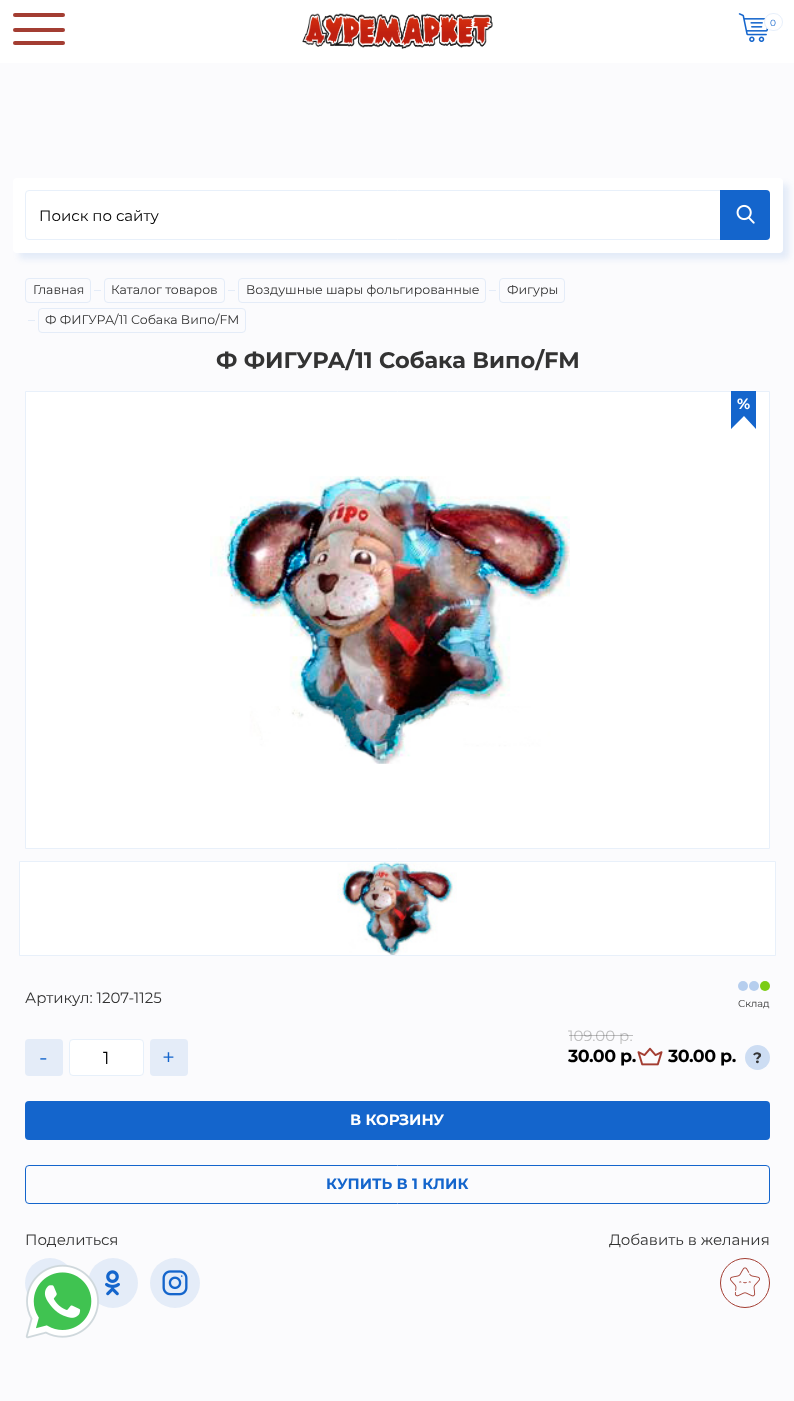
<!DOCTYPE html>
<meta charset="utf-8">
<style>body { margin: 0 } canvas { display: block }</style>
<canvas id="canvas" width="794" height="1401"></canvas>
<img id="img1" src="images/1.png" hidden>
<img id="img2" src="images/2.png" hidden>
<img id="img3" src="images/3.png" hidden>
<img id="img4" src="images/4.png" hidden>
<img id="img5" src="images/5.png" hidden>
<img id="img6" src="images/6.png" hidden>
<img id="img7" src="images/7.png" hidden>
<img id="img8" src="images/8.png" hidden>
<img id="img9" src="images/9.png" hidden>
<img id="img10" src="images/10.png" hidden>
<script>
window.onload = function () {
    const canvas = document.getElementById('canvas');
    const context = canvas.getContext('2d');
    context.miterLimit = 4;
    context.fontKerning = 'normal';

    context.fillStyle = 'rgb(251, 251, 253)';
    context.fillRect(0, 0, 794, 1401);
    context.fillStyle = 'rgb(255, 255, 255)';
    context.fillRect(0, 0, 794, 63);
    context.fillStyle = 'rgb(163, 61, 50)';
    context.beginPath();
    context.roundRect(13, 13, 52, 4, 2);
    context.fill();
    context.beginPath();
    context.roundRect(13, 28, 52, 4, 2);
    context.fill();
    context.beginPath();
    context.roundRect(13, 41, 52, 4, 2);
    context.fill();
    context.drawImage(document.getElementById('img1'), 302, 13, 191, 36);
    context.drawImage(document.getElementById('img2'), 738, 13, 31, 29);
    context.fillStyle = 'rgb(255, 255, 255)';
    context.beginPath();
    context.roundRect(764, 13, 19, 18, 9);
    context.fill();
    context.beginPath();
    context.roundRect(764.5, 13.5, 18, 17, 8.5);
    context.strokeStyle = 'rgba(20, 101, 204, 0.1)';
    context.stroke();
    context.fillStyle = 'rgba(20, 101, 204, 0.1)';
    context.filter = 'blur(3px)';
    context.beginPath();
    context.roundRect(19, 184, 770, 75, 4);
    context.fill();
    context.filter = 'none';
    context.fillStyle = 'rgb(255, 255, 255)';
    context.beginPath();
    context.roundRect(13, 178, 770, 75, 4);
    context.fill();
    context.beginPath();
    context.roundRect(25.5, 190.5, 744, 49, 3.5);
    context.strokeStyle = 'rgb(232, 240, 250)';
    context.stroke();
    context.fillStyle = 'rgb(20, 101, 204)';
    context.beginPath();
    context.roundRect(720, 190, 50, 50, [0, 4, 4, 0]);
    context.fill();
    context.drawImage(document.getElementById('img3'), 736, 204, 19, 20);
    context.beginPath();
    context.roundRect(25.5, 278.5, 65, 24, 3.5);
    context.strokeStyle = 'rgb(228, 236, 248)';
    context.stroke();
    context.fillStyle = 'rgb(228, 236, 248)';
    context.fillRect(94, 290, 7, 1);
    context.beginPath();
    context.roundRect(104.5, 278.5, 120, 24, 3.5);
    context.stroke();
    context.fillRect(228, 290, 7, 1);
    context.beginPath();
    context.roundRect(238.5, 278.5, 247, 24, 3.5);
    context.stroke();
    context.fillRect(489, 290, 7, 1);
    context.beginPath();
    context.roundRect(499.5, 278.5, 65, 24, 3.5);
    context.stroke();
    context.fillRect(28, 320, 7, 1);
    context.beginPath();
    context.roundRect(38.5, 308.5, 207, 24, 3.5);
    context.stroke();
    context.fillStyle = 'rgb(255, 255, 255)';
    context.beginPath();
    context.rect(25.5, 391.5, 744, 457);
    context.fill();
    context.strokeStyle = 'rgb(232, 240, 250)';
    context.stroke();
    context.fillStyle = 'rgb(20, 101, 204)';
    context.fillRect(731, 391, 25, 25);
    context.beginPath();
    context.moveTo(756, 416);
    context.lineTo(756, 429);
    context.lineTo(744, 416);
    context.closePath();
    context.moveTo(731, 429);
    context.lineTo(731, 416);
    context.lineTo(744, 416);
    context.closePath();
    context.fill();
    context.drawImage(document.getElementById('img4'), 210, 476, 360, 288);
    context.fillStyle = 'rgb(255, 255, 255)';
    context.beginPath();
    context.rect(19.5, 861.5, 756, 94);
    context.fill();
    context.stroke();
    context.drawImage(document.getElementById('img5'), 337, 862, 120, 93);
    context.fillStyle = 'rgb(182, 206, 238)';
    context.beginPath();
    context.arc(743, 986, 5, 0, 2 * Math.PI);
    context.fill();
    context.beginPath();
    context.arc(754, 986, 5, 0, 2 * Math.PI);
    context.fill();
    context.fillStyle = 'rgb(123, 204, 20)';
    context.beginPath();
    context.arc(765, 986, 5, 0, 2 * Math.PI);
    context.fill();
    context.fillStyle = 'rgb(228, 236, 248)';
    context.beginPath();
    context.roundRect(25, 1039, 38, 37, 4);
    context.fill();
    context.fillStyle = 'rgb(255, 255, 255)';
    context.beginPath();
    context.roundRect(69.5, 1039.5, 74, 36, 3.5);
    context.fill();
    context.strokeStyle = 'rgb(231, 240, 250)';
    context.stroke();
    context.fillStyle = 'rgb(228, 236, 248)';
    context.beginPath();
    context.roundRect(150, 1039, 38, 37, 4);
    context.fill();
    context.drawImage(document.getElementById('img6'), 637, 1047, 26, 19);
    context.fillStyle = 'rgb(205, 221, 243)';
    context.beginPath();
    context.arc(757.5, 1057.5, 12.5, 0, 2 * Math.PI);
    context.fill();
    context.fillStyle = 'rgb(20, 101, 204)';
    context.beginPath();
    context.roundRect(25, 1101, 745, 39, 4);
    context.fill();
    context.beginPath();
    context.roundRect(25.5, 1165.5, 744, 38, 3.5);
    context.strokeStyle = 'rgb(20, 101, 204)';
    context.stroke();
    context.fillStyle = 'rgb(228, 236, 248)';
    context.beginPath();
    context.arc(50, 1283, 25, 0, 2 * Math.PI);
    context.fill();
    context.beginPath();
    context.arc(113, 1283, 25, 0, 2 * Math.PI);
    context.fill();
    context.drawImage(document.getElementById('img7'), 105, 1270, 15, 26);
    context.beginPath();
    context.arc(175, 1283, 25, 0, 2 * Math.PI);
    context.fill();
    context.drawImage(document.getElementById('img8'), 162, 1270, 26, 26);
    context.beginPath();
    context.arc(745, 1283, 24.5, 0, 2 * Math.PI);
    context.strokeStyle = 'rgb(163, 61, 50)';
    context.stroke();
    context.drawImage(document.getElementById('img9'), 730, 1267, 30, 30);
    context.drawImage(document.getElementById('img10'), 25, 1264, 74, 75);
    context.font = '9px Montserrat';
    context.fillStyle = 'rgb(20, 101, 204)';
    context.fillText('0', 770, 26);
    context.font = '15px Montserrat';
    context.fillStyle = 'rgb(0, 0, 0)';
    context.fillText('Поиск по сайту', 39, 221);
    context.font = '12.5px Montserrat';
    context.fillStyle = 'rgb(51, 51, 51)';
    context.fillText('Главная', 33, 294);
    context.fillText('Каталог товаров', 111, 294);
    context.fillText('Воздушные шары фольгированные', 246, 294);
    context.fillText('Фигуры', 507, 294);
    context.fillText('Ф ФИГУРА/11 Собака Випо/FM', 45, 324);
    context.font = 'bold 22.5px Montserrat';
    context.fillText('Ф ФИГУРА/11 Собака Випо/FM', 216, 368);
    context.font = 'bold 15px Montserrat';
    context.fillStyle = 'rgb(255, 255, 255)';
    context.fillText('%', 737, 409);
    context.font = '15px Montserrat';
    context.fillStyle = 'rgb(51, 51, 51)';
    context.fillText('Артикул: 1207-1125', 25, 1003);
    context.font = '10px Montserrat';
    context.fillText('Склад', 738, 1007);
    context.font = '22.5px Montserrat';
    context.fillStyle = 'rgb(20, 101, 204)';
    context.fillText('-', 39, 1065);
    context.font = '17.5px Montserrat';
    context.fillStyle = 'rgb(0, 0, 0)';
    context.fillText('1', 103, 1064);
    context.font = '22.5px Montserrat';
    context.fillStyle = 'rgb(20, 101, 204)';
    context.fillText('+', 162, 1065);
    context.font = '15px Montserrat';
    context.fillStyle = 'rgb(191, 191, 192)';
    context.fillText('109.00 р.', 568, 1041);
    context.fillStyle = 'rgba(51, 51, 51, 0.3)';
    context.fillRect(569, 1035, 64, 1);
    context.letterSpacing = '-0.5px';
    context.font = 'bold 17.5px Montserrat';
    context.fillStyle = 'rgb(0, 0, 0)';
    context.fillText('30.00 р.', 568, 1062);
    context.fillText('30.00 р.', 668, 1062);
    context.letterSpacing = '0px';
    context.font = 'bold 15px Montserrat';
    context.fillStyle = 'rgb(51, 51, 51)';
    context.fillText('?', 753, 1063);
    context.fillStyle = 'rgb(255, 255, 255)';
    context.fillText('В КОРЗИНУ', 350, 1125);
    context.fillStyle = 'rgb(20, 101, 204)';
    context.fillText('КУПИТЬ В 1 КЛИК', 326, 1189);
    context.font = '15px Montserrat';
    context.fillStyle = 'rgb(51, 51, 51)';
    context.fillText('Поделиться', 25, 1245);
    context.fillText('Добавить в желания', 609, 1245);
};
</script>
